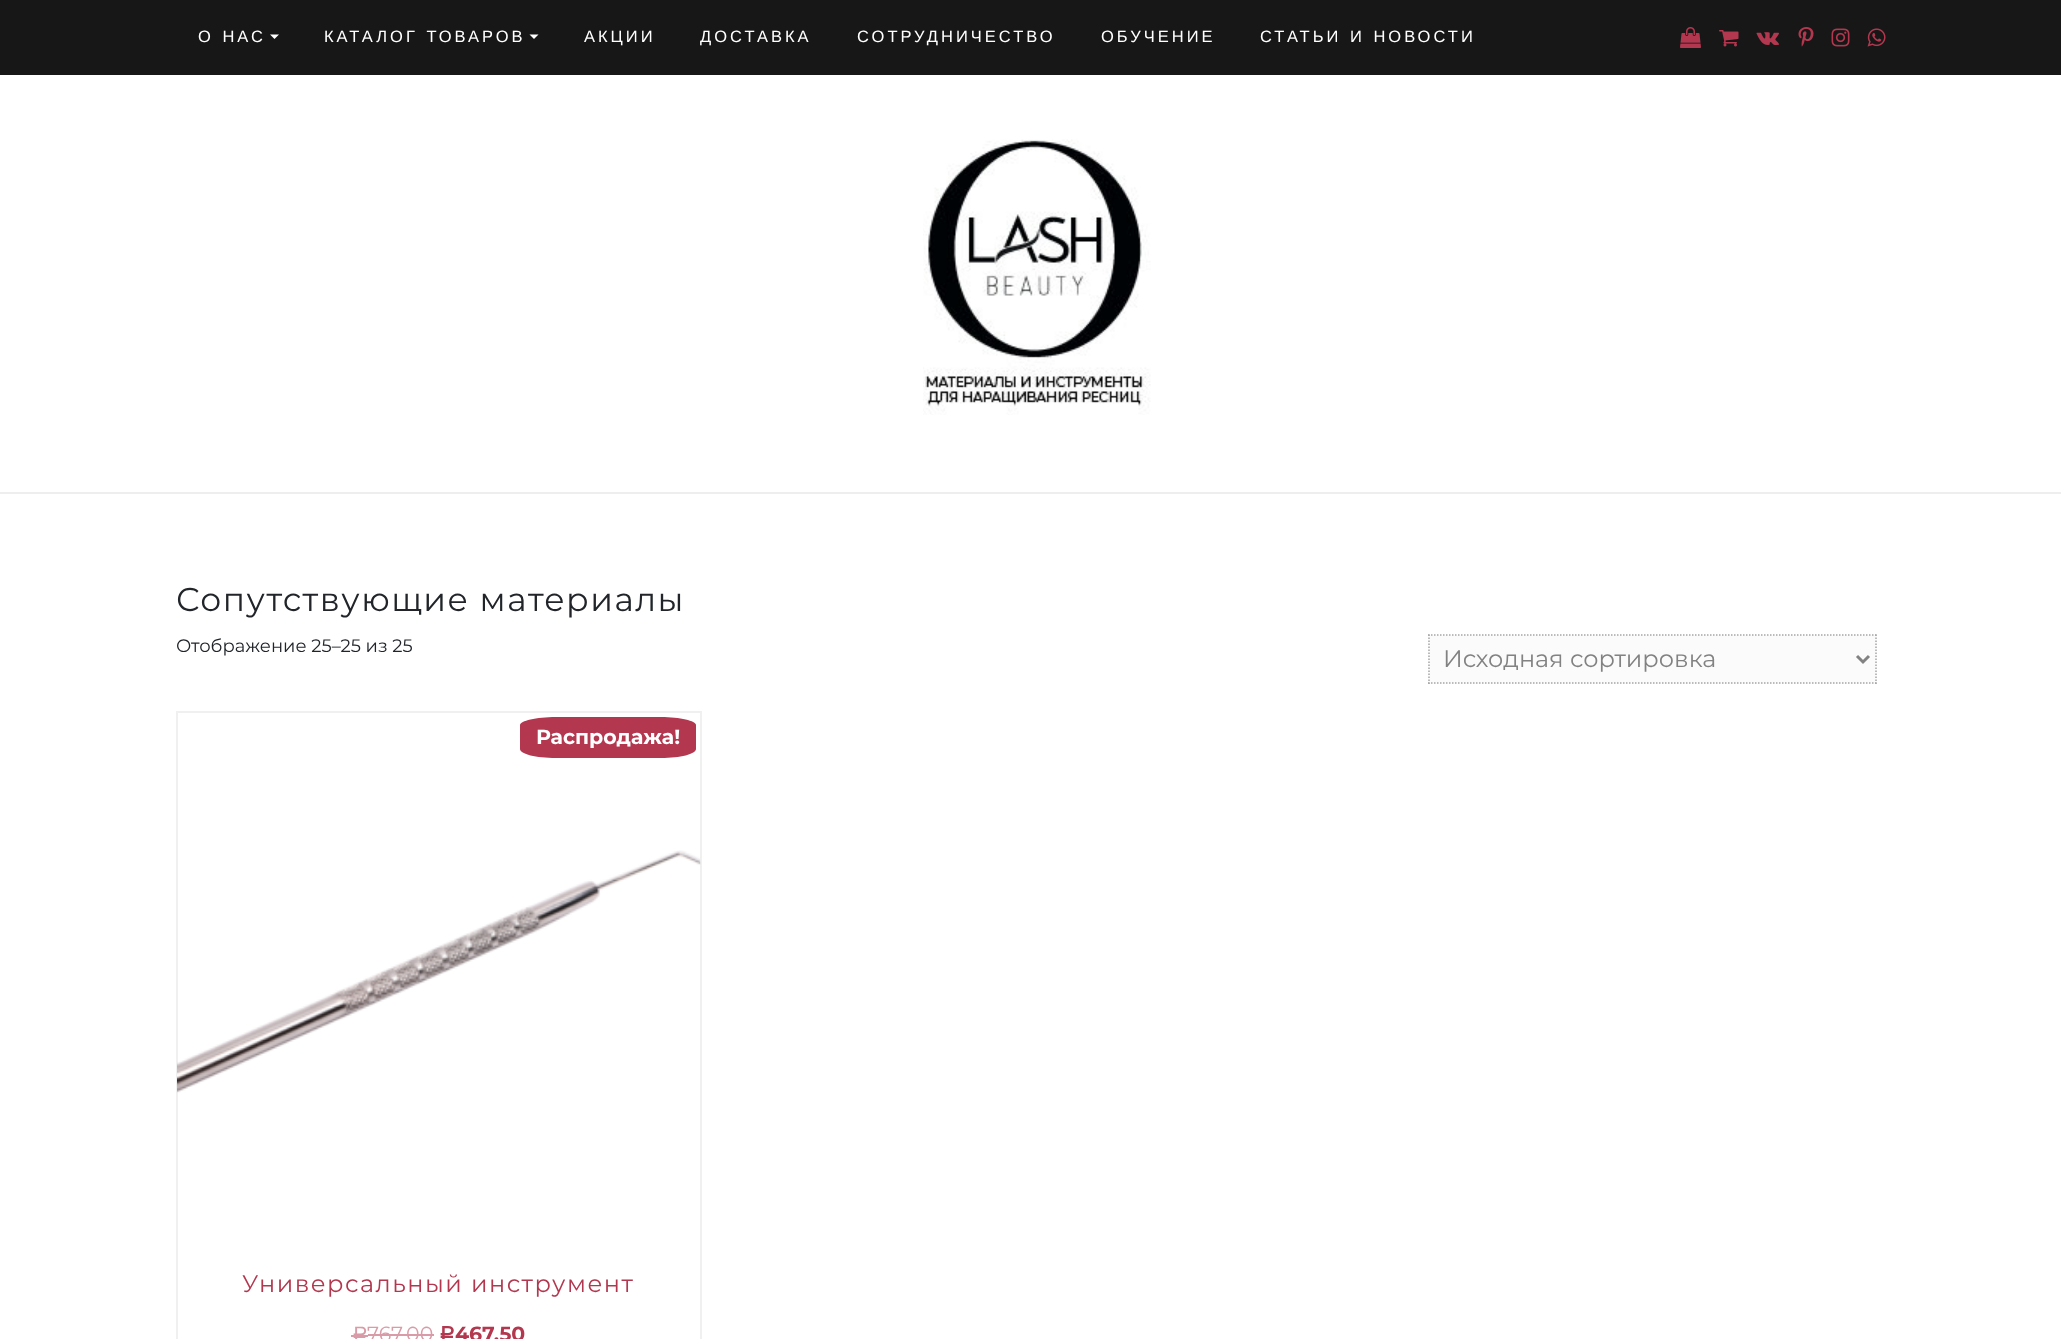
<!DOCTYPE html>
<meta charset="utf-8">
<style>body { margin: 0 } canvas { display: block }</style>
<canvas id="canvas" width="2061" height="1339"></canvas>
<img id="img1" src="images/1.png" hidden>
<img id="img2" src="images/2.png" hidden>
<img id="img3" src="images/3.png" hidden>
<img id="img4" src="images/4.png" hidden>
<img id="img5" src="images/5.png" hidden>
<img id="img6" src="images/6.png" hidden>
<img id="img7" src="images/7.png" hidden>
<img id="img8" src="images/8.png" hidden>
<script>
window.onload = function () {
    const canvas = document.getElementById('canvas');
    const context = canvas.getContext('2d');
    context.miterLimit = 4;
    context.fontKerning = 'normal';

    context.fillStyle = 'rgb(255, 255, 255)';
    context.fillRect(0, 0, 2061, 1339);
    context.fillStyle = 'rgb(23, 23, 23)';
    context.fillRect(0, 0, 2061, 75);
    context.fillStyle = 'rgb(255, 255, 255)';
    context.beginPath();
    context.moveTo(270, 34.5);
    context.lineTo(279, 34.5);
    context.lineTo(274.5, 39);
    context.closePath();
    context.fill();
    context.beginPath();
    context.moveTo(529.5, 34.5);
    context.lineTo(538.5, 34.5);
    context.lineTo(534, 39);
    context.closePath();
    context.fill();
    context.drawImage(document.getElementById('img1'), 1680, 27, 21, 21);
    context.drawImage(document.getElementById('img2'), 1719, 30, 20, 17);
    context.drawImage(document.getElementById('img3'), 1756, 32, 23, 13);
    context.drawImage(document.getElementById('img4'), 1798, 27, 16, 20);
    context.drawImage(document.getElementById('img5'), 1831, 28, 19, 19);
    context.drawImage(document.getElementById('img6'), 1867, 28, 19, 19);
    context.fillStyle = 'rgb(238, 238, 238)';
    context.fillRect(0, 492, 2061, 2);
    context.drawImage(document.getElementById('img7'), 923, 139, 228, 276);
    context.fillStyle = 'rgb(251, 251, 251)';
    context.fillRect(1428, 635, 449, 49);
    context.beginPath();
    context.moveTo(1428, 635);
    context.lineTo(1876.5, 635);
    context.strokeStyle = 'rgb(167, 167, 167)';
    context.lineWidth = 1.5;
    context.setLineDash([1.5, 1.5]);
    context.stroke();
    context.beginPath();
    context.moveTo(1876, 634.5);
    context.lineTo(1876, 684);
    context.stroke();
    context.beginPath();
    context.moveTo(1428, 683);
    context.lineTo(1876.5, 683);
    context.stroke();
    context.beginPath();
    context.moveTo(1429, 634.5);
    context.lineTo(1429, 684);
    context.stroke();
    context.beginPath();
    context.moveTo(1857, 656);
    context.lineTo(1863, 662);
    context.lineTo(1869, 656);
    context.strokeStyle = 'rgb(130, 130, 130)';
    context.lineWidth = 3;
    context.setLineDash([]);
    context.stroke();
    context.strokeStyle = 'rgb(240, 240, 240)';
    context.lineWidth = 2;
    context.strokeRect(177, 712, 524, 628);
    context.fillStyle = 'rgb(178, 55, 79)';
    context.beginPath();
    context.moveTo(556, 717);
    context.lineTo(661, 717);
    context.bezierCurveTo(680, 717, 696, 721, 696, 725);
    context.lineTo(696, 749);
    context.bezierCurveTo(696, 754, 680, 758, 661, 758);
    context.lineTo(556, 758);
    context.bezierCurveTo(536, 758, 520, 754, 520, 749);
    context.lineTo(520, 725);
    context.bezierCurveTo(520, 721, 536, 717, 556, 717);
    context.closePath();
    context.fill();
    context.drawImage(document.getElementById('img8'), 177, 850, 524, 243);
    context.fillStyle = 'rgb(217, 155, 167)';
    context.fillRect(351, 1335, 17, 2);
    context.fillRect(368, 1334, 66, 2);
    context.letterSpacing = '3px';
    context.wordSpacing = '1px';
    context.font = '16.5px Liberation Sans';
    context.fillStyle = 'rgb(255, 255, 255)';
    context.fillText('О НАС', 198, 42);
    context.fillText('КАТАЛОГ ТОВАРОВ', 324, 42);
    context.wordSpacing = '0px';
    context.fillText('АКЦИИ', 584, 42);
    context.fillText('ДОСТАВКА', 700, 42);
    context.fillText('СОТРУДНИЧЕСТВО', 857, 42);
    context.fillText('ОБУЧЕНИЕ', 1101, 42);
    context.wordSpacing = '1px';
    context.fillText('СТАТЬИ И НОВОСТИ', 1260, 42);
    context.letterSpacing = '1.5px';
    context.wordSpacing = '0px';
    context.font = '33px Montserrat';
    context.fillStyle = 'rgb(33, 37, 41)';
    context.fillText('Сопутствующие материалы', 176, 611);
    context.letterSpacing = '0px';
    context.font = '18px Montserrat';
    context.fillText('Отображение 25–25 из 25', 176, 652);
    context.font = '24px Montserrat';
    context.fillStyle = 'rgb(130, 130, 130)';
    context.fillText('Исходная сортировка', 1443, 667);
    context.font = 'bold 20.5px Montserrat';
    context.fillStyle = 'rgb(255, 255, 255)';
    context.fillText('Распродажа!', 536, 744);
    context.letterSpacing = '1.5px';
    context.font = '24px Montserrat';
    context.fillStyle = 'rgb(178, 55, 79)';
    context.fillText('Универсальный инструмент', 242, 1292);
    context.letterSpacing = '0px';
    context.font = '20.5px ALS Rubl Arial';
    context.fillStyle = 'rgb(217, 155, 167)';
    context.fillText('Р', 352, 1341);
    context.font = '20.5px Montserrat';
    context.fillText('767.00', 367, 1341);
    context.font = 'bold 20.5px ALS Rubl Arial';
    context.fillStyle = 'rgb(178, 55, 79)';
    context.fillText('Р', 439, 1341);
    context.font = 'bold 20.5px Montserrat';
    context.fillText('467.50', 455, 1341);
};
</script>
